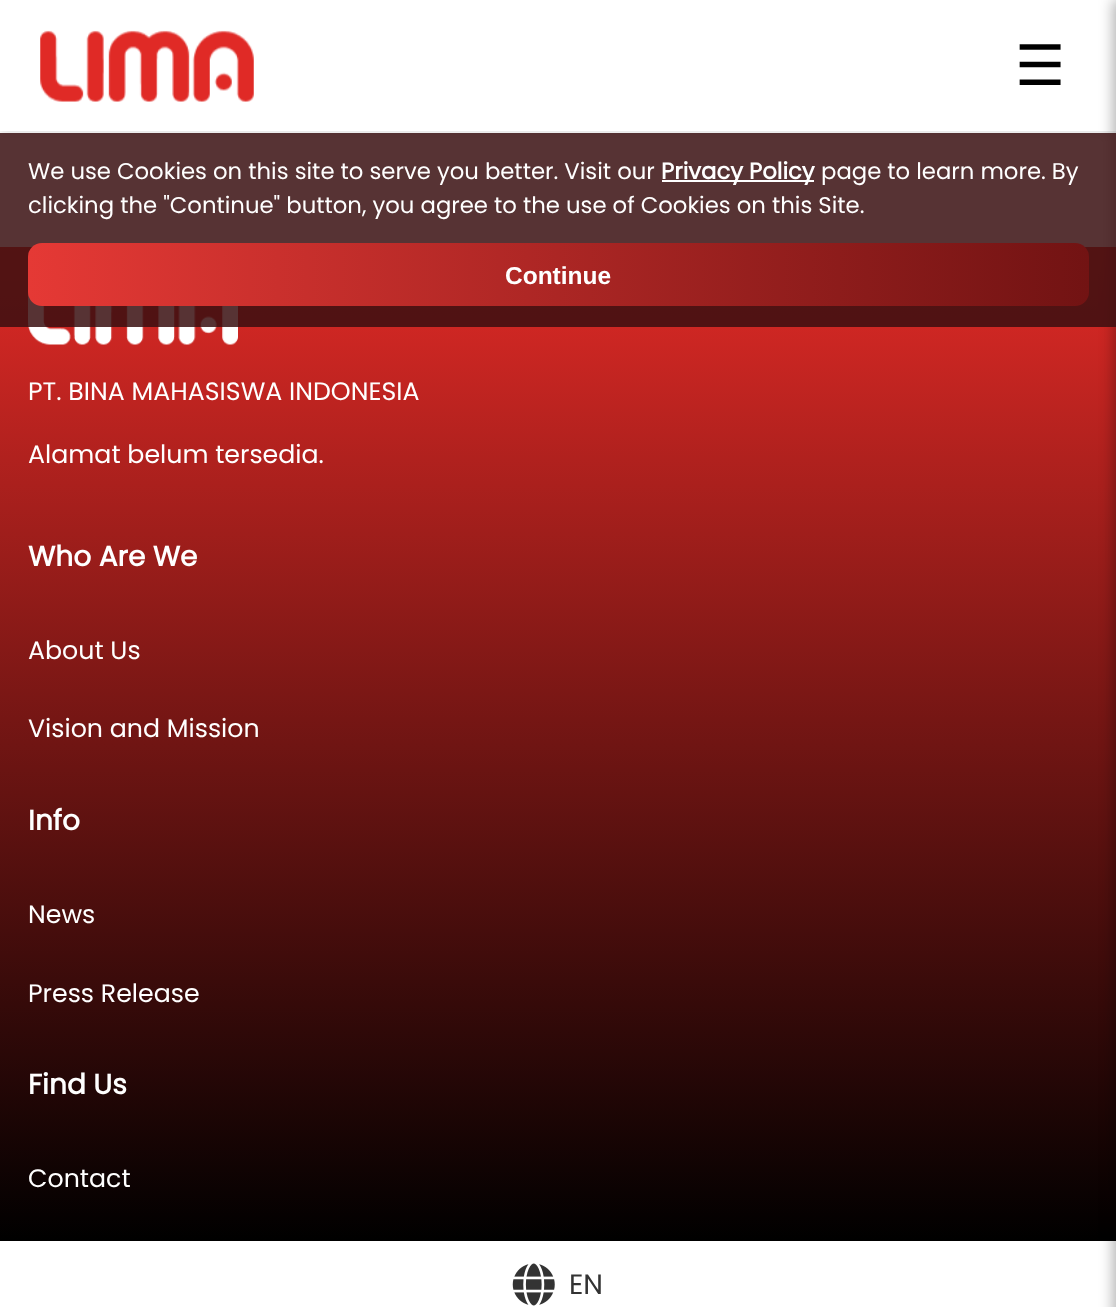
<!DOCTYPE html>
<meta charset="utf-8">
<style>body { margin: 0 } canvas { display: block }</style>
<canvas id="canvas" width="1116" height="1307"></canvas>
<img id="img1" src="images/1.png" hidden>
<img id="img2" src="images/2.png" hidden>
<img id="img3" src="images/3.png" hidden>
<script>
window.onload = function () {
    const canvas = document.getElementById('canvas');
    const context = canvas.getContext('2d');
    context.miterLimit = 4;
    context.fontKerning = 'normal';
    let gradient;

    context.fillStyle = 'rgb(255, 255, 255)';
    context.fillRect(0, 0, 1116, 1307);
    context.fillStyle = 'rgba(0, 0, 0, 0.1)';
    context.filter = 'blur(4.5px)';
    context.beginPath();
    context.rect(0, 4, 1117, 131);
    context.fill();
    context.filter = 'none';
    context.fillStyle = 'rgb(255, 255, 255)';
    context.fillRect(0, 0, 1116, 131);
    context.drawImage(document.getElementById('img1'), 40, 30, 214, 72);
    gradient = context.createLinearGradient(558, 1241, 558, 247);
    gradient.addColorStop(0, 'rgb(0, 0, 0)');
    gradient.addColorStop(1, 'rgb(224, 42, 38)');
    context.fillStyle = gradient;
    context.fillRect(0, 247, 1116, 994);
    context.fillStyle = 'rgba(0, 0, 0, 0.3)';
    context.filter = 'blur(7px)';
    context.beginPath();
    context.rect(1113, 0, 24, 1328);
    context.fill();
    context.filter = 'none';
    context.drawImage(document.getElementById('img2'), 28, 292, 210, 53);
    context.fillStyle = 'rgba(58, 15, 16, 0.85)';
    context.fillRect(0, 133, 1116, 194);
    context.fillStyle = 'rgb(255, 255, 255)';
    context.fillRect(662, 180, 152, 2);
    gradient = context.createLinearGradient(28, 275, 1089, 275);
    gradient.addColorStop(0, 'rgb(229, 57, 53)');
    gradient.addColorStop(1, 'rgb(114, 19, 19)');
    context.fillStyle = gradient;
    context.beginPath();
    context.roundRect(28, 243, 1061, 63, 14);
    context.fill();
    context.drawImage(document.getElementById('img3'), 512, 1263, 43, 43);
    context.font = '56px DejaVu Sans';
    context.fillStyle = 'rgb(0, 0, 0)';
    context.fillText('☰', 1015, 85);
    context.font = '22.75px Poppins';
    context.fillStyle = 'rgb(255, 255, 255)';
    context.fillText('We use Cookies on this site to serve you better. Visit our', 28, 179);
    context.font = 'bold 22.75px Poppins';
    context.fillText('Privacy Policy', 661, 179);
    context.font = '22.75px Poppins';
    context.fillText('page to learn more. By', 821, 179);
    context.fillText('clicking the "Continue" button, you agree to the use of Cookies on this Site.', 28, 213);
    context.font = 'bold 24.5px Liberation Sans';
    context.fillText('Continue', 505, 284);
    context.font = '25.25px Poppins';
    context.fillText('PT. BINA MAHASISWA INDONESIA', 28, 400);
    context.fillText('Alamat belum tersedia.', 28, 463);
    context.font = 'bold 28px Poppins';
    context.fillText('Who Are We', 28, 566);
    context.font = '25.25px Poppins';
    context.fillText('About Us', 28, 659);
    context.fillText('Vision and Mission', 28, 737);
    context.font = 'bold 28px Poppins';
    context.fillText('Info', 28, 830);
    context.font = '25.25px Poppins';
    context.fillText('News', 28, 923);
    context.fillText('Press Release', 28, 1002);
    context.font = 'bold 28px Poppins';
    context.fillText('Find Us', 28, 1094);
    context.font = '25.25px Poppins';
    context.fillText('Contact', 28, 1187);
    context.font = '28px Poppins';
    context.fillStyle = 'rgb(51, 51, 51)';
    context.fillText('EN', 569, 1294);
};
</script>
